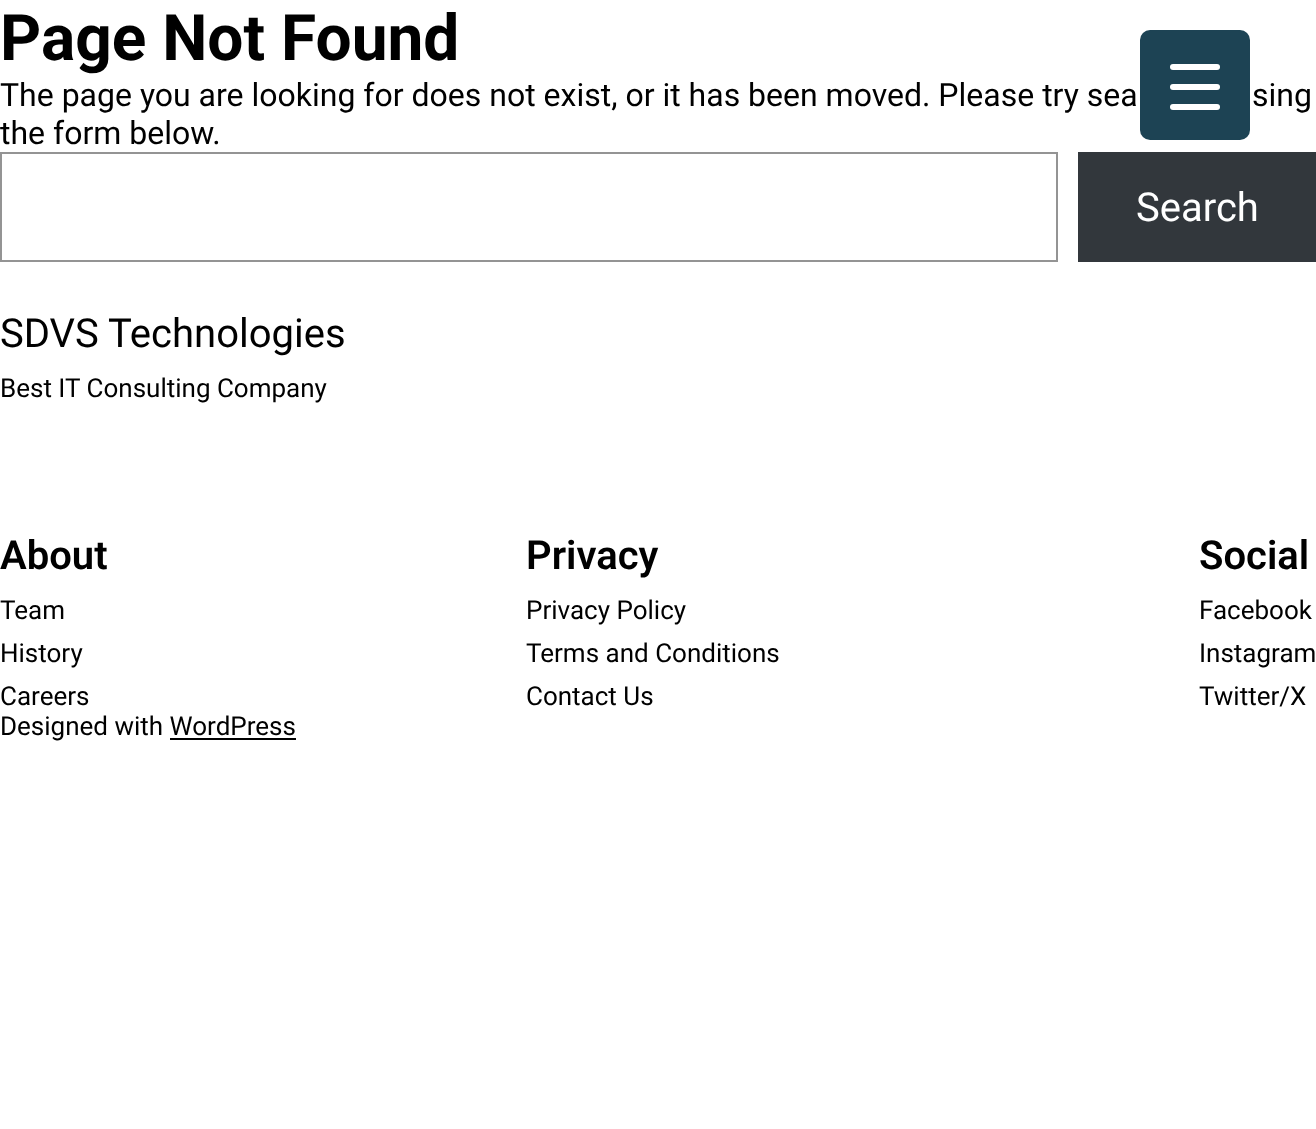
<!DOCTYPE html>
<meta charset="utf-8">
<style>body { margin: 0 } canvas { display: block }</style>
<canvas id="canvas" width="1316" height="1129"></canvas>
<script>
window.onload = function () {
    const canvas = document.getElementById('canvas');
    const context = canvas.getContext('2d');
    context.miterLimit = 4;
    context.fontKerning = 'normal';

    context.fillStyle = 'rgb(255, 255, 255)';
    context.fillRect(0, 0, 1316, 1129);
    context.strokeStyle = 'rgb(148, 148, 148)';
    context.lineWidth = 2;
    context.strokeRect(1, 153, 1056, 108);
    context.fillStyle = 'rgb(50, 55, 60)';
    context.fillRect(1078, 152, 238, 110);
    context.fillStyle = 'rgb(0, 0, 0)';
    context.fillRect(170, 738, 126, 2);
    context.fillStyle = 'rgb(29, 67, 84)';
    context.beginPath();
    context.roundRect(1140, 30, 110, 110, 10);
    context.fill();
    context.fillStyle = 'rgb(255, 255, 255)';
    context.beginPath();
    context.roundRect(1170, 84, 50, 6, 3);
    context.fill();
    context.beginPath();
    context.roundRect(1170, 64, 50, 6, 3);
    context.fill();
    context.beginPath();
    context.roundRect(1170, 104, 50, 6, 3);
    context.fill();
    context.font = 'bold 64px Roboto';
    context.fillStyle = 'rgb(0, 0, 0)';
    context.fillText('Page Not Found', 0, 60);
    context.font = '32px Roboto';
    context.fillText('The page you are looking for does not exist, or it has been moved. Please try sea', 0, 106);
    context.fillText('sing', 1252, 106);
    context.fillText('the form below.', 0, 144);
    context.font = '40px Roboto';
    context.fillStyle = 'rgb(255, 255, 255)';
    context.fillText('Search', 1136, 221);
    context.fillStyle = 'rgb(0, 0, 0)';
    context.fillText('SDVS Technologies', 0, 347);
    context.font = '26px Roboto';
    context.fillText('Best IT Consulting Company', 0, 397);
    context.font = '600 40px Roboto';
    context.fillText('About', 0, 569);
    context.font = '26px Roboto';
    context.fillText('Team', 0, 619);
    context.fillText('History', 0, 662);
    context.fillText('Careers', 0, 705);
    context.font = '600 40px Roboto';
    context.fillText('Privacy', 526, 569);
    context.font = '26px Roboto';
    context.fillText('Privacy Policy', 526, 619);
    context.fillText('Terms and Conditions', 526, 662);
    context.fillText('Contact Us', 526, 705);
    context.font = '600 40px Roboto';
    context.fillText('Social', 1199, 569);
    context.font = '26px Roboto';
    context.fillText('Facebook', 1199, 619);
    context.fillText('Instagram', 1199, 662);
    context.fillText('Twitter/X', 1199, 705);
    context.fillText('Designed with WordPress', 0, 735);
};
</script>
